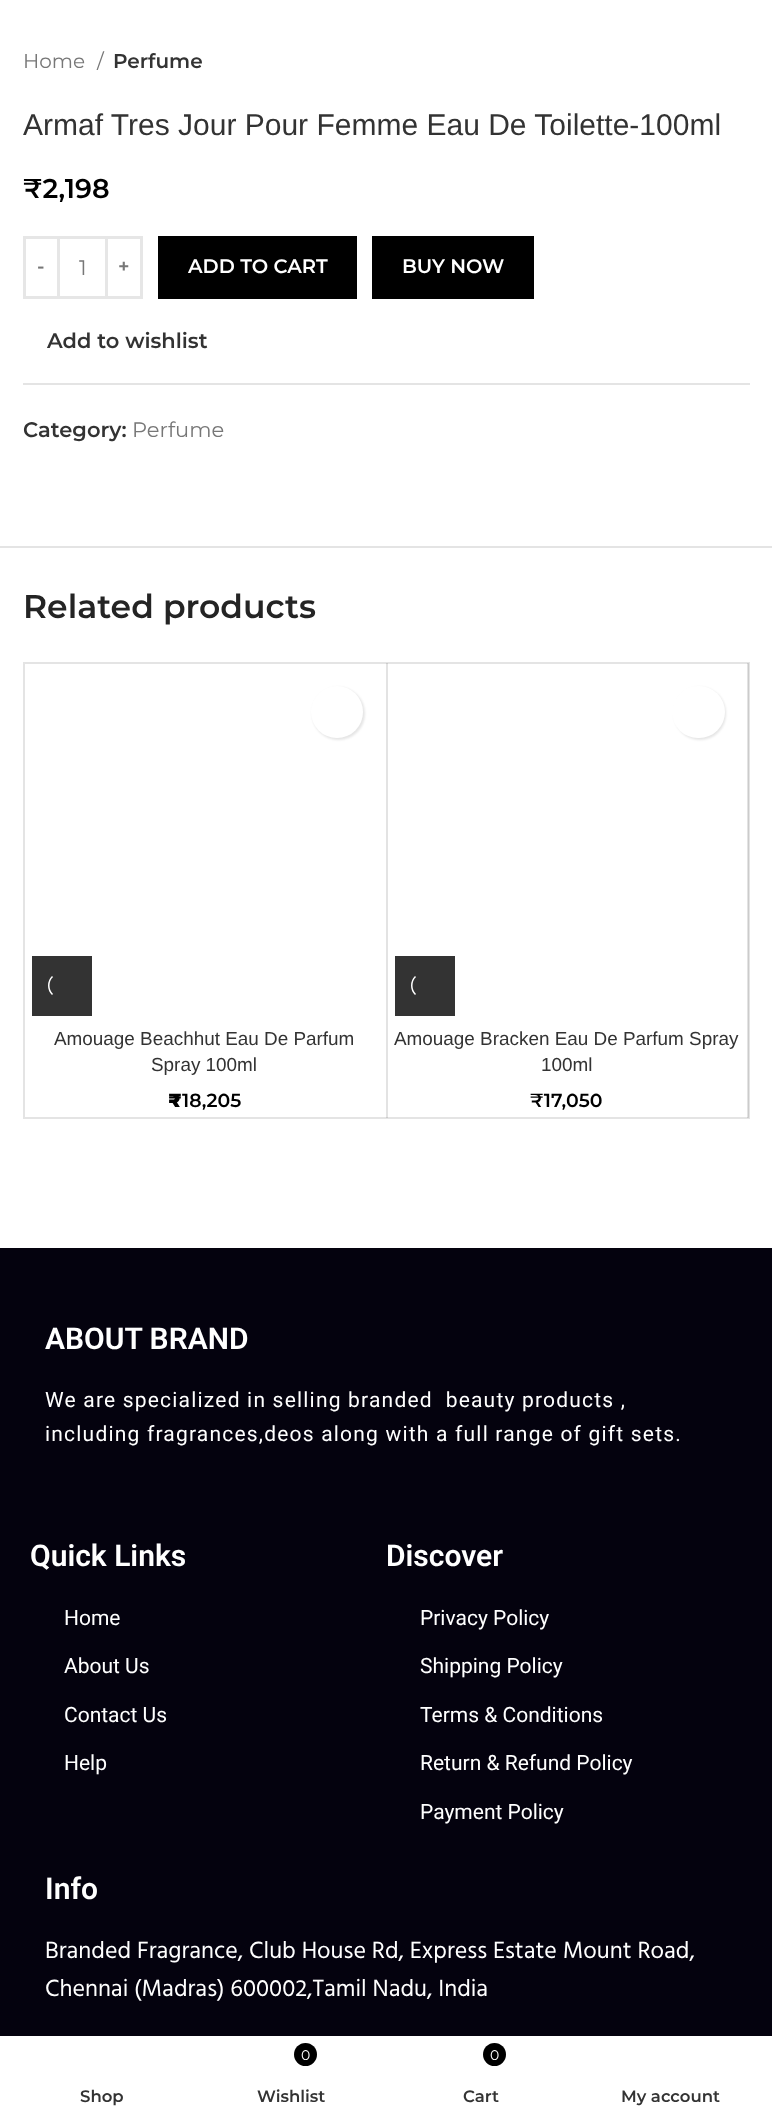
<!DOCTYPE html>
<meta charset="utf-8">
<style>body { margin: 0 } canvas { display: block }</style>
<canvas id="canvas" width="772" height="2117"></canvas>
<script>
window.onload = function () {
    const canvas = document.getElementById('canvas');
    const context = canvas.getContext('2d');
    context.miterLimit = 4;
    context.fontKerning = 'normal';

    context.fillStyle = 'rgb(255, 255, 255)';
    context.fillRect(0, 0, 772, 2117);
    context.strokeStyle = 'rgb(230, 230, 230)';
    context.lineWidth = 3;
    context.strokeRect(24.5, 237.5, 34, 60);
    context.fillStyle = 'rgb(230, 230, 230)';
    context.fillRect(60, 236, 45, 3);
    context.fillRect(60, 296, 45, 3);
    context.strokeRect(106.5, 237.5, 35, 60);
    context.fillStyle = 'rgb(0, 0, 0)';
    context.fillRect(158, 236, 199, 63);
    context.fillRect(372, 236, 162, 63);
    context.fillStyle = 'rgb(228, 228, 228)';
    context.fillRect(23, 383, 727, 2);
    context.fillRect(0, 546, 772, 2);
    context.strokeStyle = 'rgb(228, 228, 228)';
    context.lineWidth = 2;
    context.strokeRect(24, 663, 725, 455);
    context.fillStyle = 'rgba(0, 0, 0, 0.11)';
    context.fillRect(386, 663, 2, 455);
    context.fillStyle = 'rgba(0, 0, 0, 0.1)';
    context.filter = 'blur(1px)';
    context.beginPath();
    context.roundRect(312, 687, 53, 53, 26.5);
    context.fill();
    context.filter = 'none';
    context.fillStyle = 'rgb(255, 255, 255)';
    context.beginPath();
    context.arc(337, 712, 26, 0, 2 * Math.PI);
    context.fill();
    context.fillStyle = 'rgb(51, 51, 51)';
    context.fillRect(32, 956, 60, 60);
    context.beginPath();
    context.moveTo(52.5, 994.5);
    context.bezierCurveTo(47.5, 989.5, 47.5, 981.5, 52.5, 976.5);
    context.strokeStyle = 'rgb(255, 255, 255)';
    context.lineWidth = 1.5;
    context.stroke();
    context.fillStyle = 'rgba(0, 0, 0, 0.11)';
    context.fillRect(747, 663, 2, 455);
    context.fillStyle = 'rgba(0, 0, 0, 0.1)';
    context.filter = 'blur(1px)';
    context.beginPath();
    context.roundRect(674, 687, 52, 53, 26);
    context.fill();
    context.filter = 'none';
    context.fillStyle = 'rgb(255, 255, 255)';
    context.beginPath();
    context.roundRect(672, 686, 53, 52, 26);
    context.fill();
    context.fillStyle = 'rgb(51, 51, 51)';
    context.fillRect(395, 956, 60, 60);
    context.beginPath();
    context.moveTo(415.5, 994.5);
    context.bezierCurveTo(410.5, 989.5, 410.5, 981.5, 415.5, 976.5);
    context.stroke();
    context.fillStyle = 'rgb(4, 2, 14)';
    context.fillRect(0, 1248, 772, 788);
    context.fillStyle = 'rgb(0, 0, 0)';
    context.beginPath();
    context.arc(305.5, 2054.5, 11.5, 0, 2 * Math.PI);
    context.fill();
    context.beginPath();
    context.arc(494.5, 2054.5, 11.5, 0, 2 * Math.PI);
    context.fill();
    context.font = '20px Montserrat';
    context.fillStyle = 'rgb(119, 119, 119)';
    context.fillText('Home', 23, 68);
    context.fillText('/', 97, 68);
    context.font = '600 20px Montserrat';
    context.fillStyle = 'rgb(51, 51, 51)';
    context.fillText('Perfume', 113, 68);
    context.font = '30px Liberation Sans';
    context.fillText('Armaf Tres Jour Pour Femme Eau De Toilette-100ml', 23, 135);
    context.font = '600 27px Montserrat';
    context.fillStyle = 'rgb(0, 0, 0)';
    context.fillText('₹2,198', 23, 198);
    context.font = '600 19.5px Montserrat';
    context.fillStyle = 'rgb(119, 119, 119)';
    context.fillText('-', 37, 273);
    context.font = '21px Montserrat';
    context.fillText('1', 79, 275);
    context.font = '600 19.5px Montserrat';
    context.fillText('+', 118, 273);
    context.fillStyle = 'rgb(255, 255, 255)';
    context.fillText('ADD TO CART', 188, 273);
    context.fillText('BUY NOW', 402, 273);
    context.font = '600 21px Montserrat';
    context.fillStyle = 'rgb(51, 51, 51)';
    context.fillText('Add to wishlist', 47, 348);
    context.fillText('Category:', 23, 437);
    context.font = '21px Montserrat';
    context.fillStyle = 'rgb(119, 119, 119)';
    context.fillText('Perfume', 132, 437);
    context.font = '600 33px Montserrat';
    context.fillStyle = 'rgb(36, 36, 36)';
    context.fillText('Related products', 23, 618);
    context.font = '18.9px Liberation Sans';
    context.fillStyle = 'rgb(51, 51, 51)';
    context.fillText('Amouage Beachhut Eau De Parfum', 54, 1045);
    context.fillText('Spray 100ml', 151, 1071);
    context.font = '900 18.9px Montserrat';
    context.fillStyle = 'rgb(0, 0, 0)';
    context.fillText('₹', 168, 1107);
    context.font = '600 18.9px Montserrat';
    context.fillText('18,205', 182, 1107);
    context.font = '18.9px Liberation Sans';
    context.fillStyle = 'rgb(51, 51, 51)';
    context.fillText('Amouage Bracken Eau De Parfum Spray', 394, 1045);
    context.fillText('100ml', 541, 1071);
    context.font = '600 18.9px Montserrat';
    context.fillStyle = 'rgb(0, 0, 0)';
    context.fillText('₹17,050', 530, 1107);
    context.font = '600 30px Roboto';
    context.fillStyle = 'rgb(255, 255, 255)';
    context.fillText('ABOUT BRAND', 45, 1349);
    context.letterSpacing = '1.2px';
    context.font = '21px Roboto';
    context.fillText('We are specialized in selling branded  beauty products ,', 45, 1407);
    context.fillText('including fragrances,deos along with a full range of gift sets.', 45, 1441);
    context.letterSpacing = '0px';
    context.font = '600 30px Roboto';
    context.fillText('Quick Links', 30, 1566);
    context.font = '21px Roboto';
    context.fillText('Home', 64, 1625);
    context.fillText('About Us', 64, 1673);
    context.fillText('Contact Us', 64, 1722);
    context.fillText('Help', 64, 1770);
    context.font = '600 30px Roboto';
    context.fillText('Discover', 386, 1566);
    context.font = '21px Roboto';
    context.fillText('Privacy Policy', 420, 1625);
    context.fillText('Shipping Policy', 420, 1673);
    context.fillText('Terms & Conditions', 420, 1722);
    context.fillText('Return & Refund Policy', 420, 1770);
    context.fillText('Payment Policy', 420, 1819);
    context.font = '600 30px Roboto';
    context.fillText('Info', 45, 1899);
    context.font = '24px Hind';
    context.fillText('Branded Fragrance, Club House Rd, Express Estate Mount Road,', 45, 1958);
    context.fillText('Chennai (Madras) 600002,Tamil Nadu, India', 45, 1996);
    context.font = '600 16.5px Montserrat';
    context.fillStyle = 'rgb(51, 51, 51)';
    context.fillText('Shop', 80, 2102);
    context.font = '14px Montserrat';
    context.fillStyle = 'rgb(255, 255, 255)';
    context.fillText('0', 301, 2060);
    context.font = '600 16.5px Montserrat';
    context.fillStyle = 'rgb(51, 51, 51)';
    context.fillText('Wishlist', 257, 2102);
    context.font = '14px Montserrat';
    context.fillStyle = 'rgb(255, 255, 255)';
    context.fillText('0', 490, 2060);
    context.font = '600 16.5px Montserrat';
    context.fillStyle = 'rgb(51, 51, 51)';
    context.fillText('Cart', 463, 2102);
    context.fillText('My account', 621, 2102);
};
</script>
